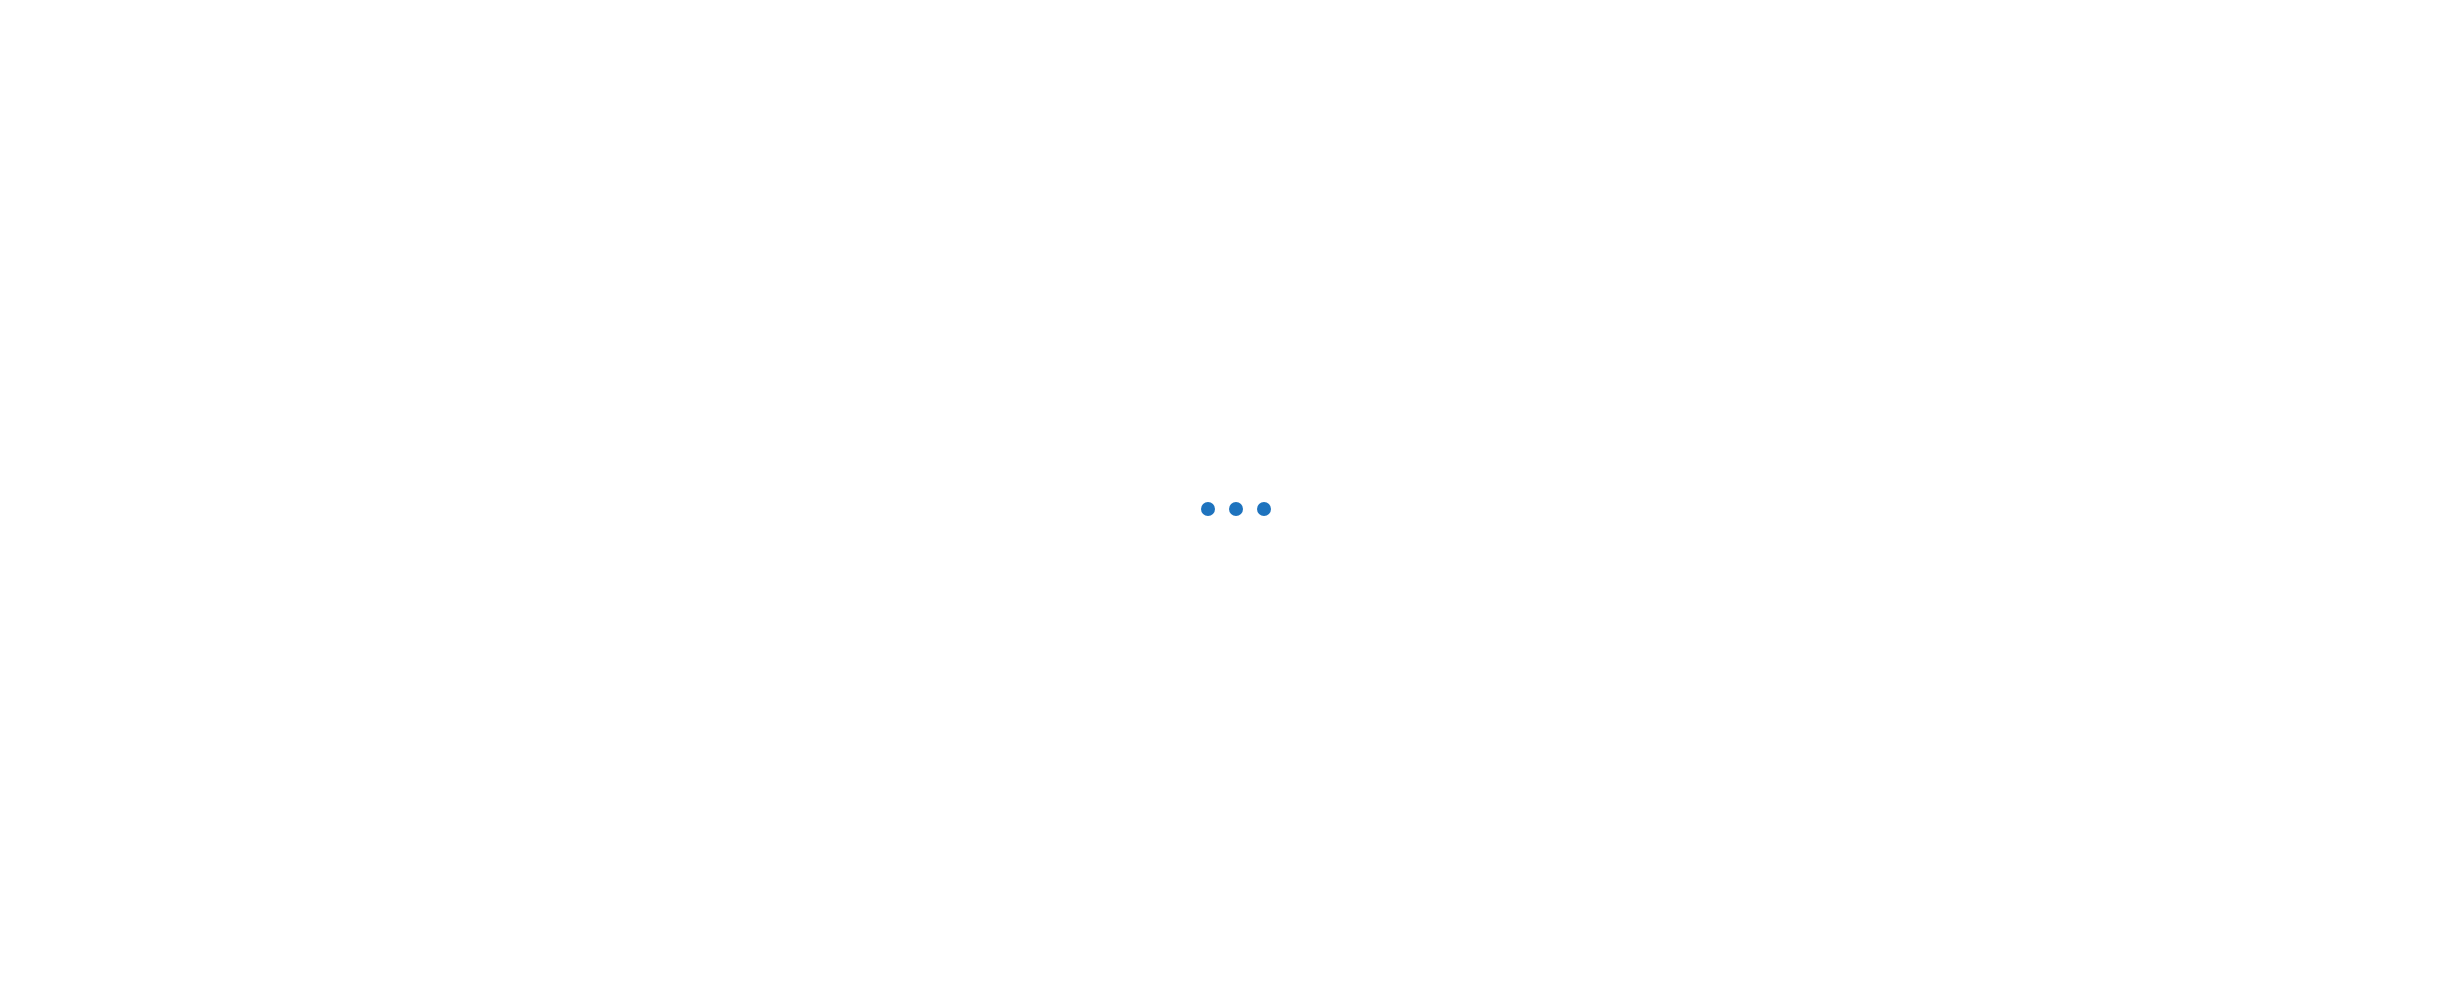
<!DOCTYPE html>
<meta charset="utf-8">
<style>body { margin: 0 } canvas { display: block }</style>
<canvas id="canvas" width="2441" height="988"></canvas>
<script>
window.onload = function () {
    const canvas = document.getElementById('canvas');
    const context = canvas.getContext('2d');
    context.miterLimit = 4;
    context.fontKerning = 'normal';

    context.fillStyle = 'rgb(255, 255, 255)';
    context.fillRect(0, 0, 2441, 988);
    context.fillStyle = 'rgb(30, 115, 190)';
    context.beginPath();
    context.arc(1208, 509, 7, 0, 2 * Math.PI);
    context.fill();
    context.beginPath();
    context.arc(1236, 509, 7, 0, 2 * Math.PI);
    context.fill();
    context.beginPath();
    context.arc(1264, 509, 7, 0, 2 * Math.PI);
    context.fill();
};
</script>
